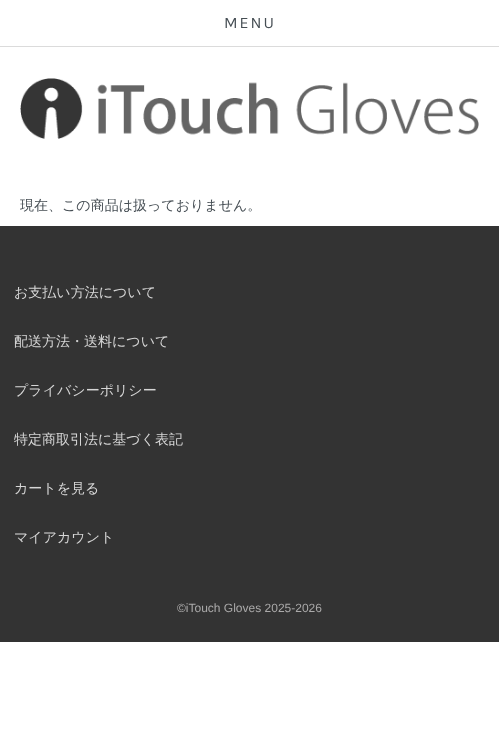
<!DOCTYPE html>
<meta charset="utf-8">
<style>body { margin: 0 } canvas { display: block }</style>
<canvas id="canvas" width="499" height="750"></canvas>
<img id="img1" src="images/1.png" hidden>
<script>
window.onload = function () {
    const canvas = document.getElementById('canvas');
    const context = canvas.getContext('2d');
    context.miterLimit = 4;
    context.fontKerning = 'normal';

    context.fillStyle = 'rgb(255, 255, 255)';
    context.fillRect(0, 0, 499, 750);
    context.fillStyle = 'rgb(219, 219, 219)';
    context.fillRect(0, 46, 499, 1);
    context.drawImage(document.getElementById('img1'), 20, 78, 459, 61);
    context.fillStyle = 'rgb(51, 51, 51)';
    context.fillRect(0, 226, 499, 416);
    context.letterSpacing = '2px';
    context.font = '16px Karla';
    context.fillStyle = 'rgb(70, 78, 84)';
    context.fillText('MENU', 224, 28);
    context.letterSpacing = '0px';
    context.font = '500 14px WenQuanYi Zen Hei';
    context.fillText('現在、この商品は扱っておりません。', 20, 210);
    context.fillStyle = 'rgb(214, 214, 214)';
    context.fillText('お支払い方法について', 14, 297);
    context.fillText('配送方法・送料について', 14, 346);
    context.fillText('プライバシーポリシー', 14, 395);
    context.fillText('特定商取引法に基づく表記', 14, 444);
    context.fillText('カートを見る', 14, 493);
    context.fillText('マイアカウント', 14, 542);
    context.font = '12px Liberation Sans';
    context.fillStyle = 'rgb(171, 170, 170)';
    context.fillText('©iTouch Gloves 2025-2026', 177, 612);
};
</script>
